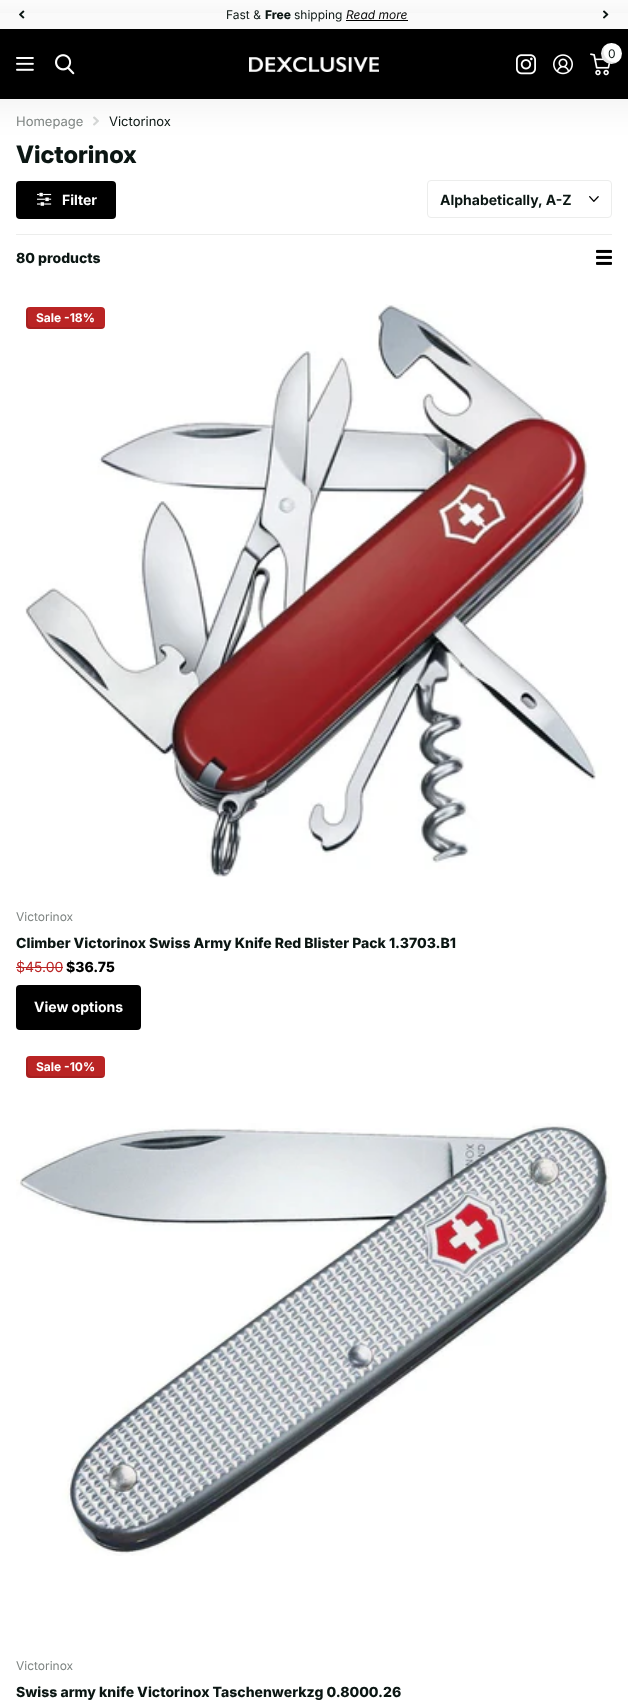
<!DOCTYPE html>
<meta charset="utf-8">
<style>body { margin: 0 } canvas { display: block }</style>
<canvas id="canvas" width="628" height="1702"></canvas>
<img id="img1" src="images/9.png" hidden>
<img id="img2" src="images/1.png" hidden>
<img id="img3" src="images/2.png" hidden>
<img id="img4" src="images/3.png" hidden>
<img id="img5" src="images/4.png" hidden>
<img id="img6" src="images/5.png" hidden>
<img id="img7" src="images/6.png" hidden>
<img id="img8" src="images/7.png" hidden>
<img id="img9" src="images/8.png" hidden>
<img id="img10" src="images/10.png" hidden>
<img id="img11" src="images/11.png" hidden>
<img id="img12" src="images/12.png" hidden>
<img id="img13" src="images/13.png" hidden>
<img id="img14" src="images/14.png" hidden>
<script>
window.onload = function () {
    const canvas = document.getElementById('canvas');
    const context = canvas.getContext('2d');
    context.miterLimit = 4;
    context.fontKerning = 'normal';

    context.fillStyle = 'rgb(255, 255, 255)';
    context.fillRect(0, 0, 628, 1702);
    context.drawImage(document.getElementById('img1'), 93, 116, 6, 10);
    context.fillStyle = 'rgba(0, 0, 0, 0.05)';
    context.filter = 'blur(16px)';
    context.beginPath();
    context.rect(-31, 9, 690, 99);
    context.fill();
    context.filter = 'none';
    context.fillStyle = 'rgb(0, 0, 0)';
    context.fillRect(0, 29, 628, 70);
    context.fillStyle = 'rgb(250, 250, 250)';
    context.fillRect(0, 13, 628, 16);
    context.drawImage(document.getElementById('img2'), 19, 10, 6, 9);
    context.fillStyle = 'rgb(0, 0, 0)';
    context.fillRect(346, 20, 62, 1);
    context.drawImage(document.getElementById('img3'), 603, 10, 6, 9);
    context.drawImage(document.getElementById('img4'), 16, 57, 18, 14);
    context.drawImage(document.getElementById('img5'), 55, 54, 20, 21);
    context.drawImage(document.getElementById('img6'), 249, 57, 130, 15);
    context.drawImage(document.getElementById('img7'), 516, 54, 20, 21);
    context.drawImage(document.getElementById('img8'), 553, 54, 20, 21);
    context.drawImage(document.getElementById('img9'), 590, 53, 21, 23);
    context.fillStyle = 'rgb(255, 255, 255)';
    context.beginPath();
    context.arc(611.5, 53.5, 10.5, 0, 2 * Math.PI);
    context.fill();
    context.fillStyle = 'rgba(0, 0, 0, 0.1)';
    context.beginPath();
    context.moveTo(619.5, 60.5);
    context.bezierCurveTo(610, 66.5, 598.5, 54, 606, 44.5);
    context.bezierCurveTo(600.5, 48.5, 599.5, 56, 604, 61);
    context.bezierCurveTo(608.5, 65, 615.5, 65, 619.5, 60.5);
    context.closePath();
    context.fill();
    context.fillStyle = 'rgb(0, 0, 0)';
    context.beginPath();
    context.roundRect(16, 181, 100, 38, 4);
    context.fill();
    context.fillStyle = 'rgba(0, 0, 0, 0.1)';
    context.beginPath();
    context.moveTo(18, 181);
    context.bezierCurveTo(17, 182, 16, 183, 16, 185);
    context.lineTo(16, 215);
    context.bezierCurveTo(16, 217, 18, 219, 20, 219);
    context.lineTo(112, 219);
    context.bezierCurveTo(114, 219, 115, 218, 116, 217);
    context.bezierCurveTo(111, 219, 104, 217, 99, 217);
    context.lineTo(37, 217);
    context.bezierCurveTo(17, 217, 18, 221, 18, 203);
    context.closePath();
    context.fill();
    context.drawImage(document.getElementById('img10'), 37, 192, 15, 14);
    context.drawImage(document.getElementById('img11'), 589, 196, 10, 6);
    context.beginPath();
    context.roundRect(427.5, 180.5, 184, 37, 3.5);
    context.strokeStyle = 'rgb(236, 237, 236)';
    context.stroke();
    context.fillStyle = 'rgb(236, 237, 236)';
    context.fillRect(16, 234, 596, 1);
    context.drawImage(document.getElementById('img12'), 596, 249, 16, 16);
    context.drawImage(document.getElementById('img13'), 25, 304, 577, 573);
    context.fillStyle = 'rgb(186, 36, 36)';
    context.beginPath();
    context.roundRect(26, 307, 79, 22, 4);
    context.fill();
    context.fillStyle = 'rgba(0, 0, 0, 0.1)';
    context.beginPath();
    context.moveTo(28, 307);
    context.bezierCurveTo(27, 308, 26, 309, 26, 311);
    context.lineTo(26, 325);
    context.bezierCurveTo(26, 327, 28, 329, 30, 329);
    context.lineTo(101, 329);
    context.bezierCurveTo(103, 329, 104, 328, 105, 327);
    context.lineTo(103, 327);
    context.lineTo(32, 327);
    context.bezierCurveTo(30, 327, 28, 325, 28, 323);
    context.lineTo(28, 309);
    context.closePath();
    context.fill();
    context.fillStyle = 'rgb(186, 36, 36)';
    context.fillRect(16, 967, 47, 1);
    context.fillStyle = 'rgb(0, 0, 0)';
    context.beginPath();
    context.roundRect(16, 985, 125, 45, 4);
    context.fill();
    context.fillStyle = 'rgba(0, 0, 0, 0.1)';
    context.beginPath();
    context.moveTo(18, 985);
    context.bezierCurveTo(17, 986, 16, 987, 16, 989);
    context.lineTo(16, 1026);
    context.bezierCurveTo(16, 1028, 18, 1030, 20, 1030);
    context.lineTo(137, 1030);
    context.bezierCurveTo(139, 1030, 140, 1029, 141, 1028);
    context.lineTo(139, 1028);
    context.lineTo(22, 1028);
    context.bezierCurveTo(20, 1028, 18, 1026, 18, 1024);
    context.lineTo(18, 987);
    context.closePath();
    context.fill();
    context.fillStyle = 'rgb(186, 36, 36)';
    context.beginPath();
    context.roundRect(26, 1056, 79, 22, 4);
    context.fill();
    context.fillStyle = 'rgba(0, 0, 0, 0.1)';
    context.beginPath();
    context.moveTo(28, 1056);
    context.bezierCurveTo(27, 1057, 26, 1058, 26, 1060);
    context.lineTo(26, 1074);
    context.bezierCurveTo(26, 1076, 28, 1078, 30, 1078);
    context.lineTo(101, 1078);
    context.bezierCurveTo(103, 1078, 104, 1077, 105, 1076);
    context.lineTo(103, 1076);
    context.lineTo(32, 1076);
    context.bezierCurveTo(30, 1076, 28, 1074, 28, 1072);
    context.lineTo(28, 1058);
    context.closePath();
    context.fill();
    context.drawImage(document.getElementById('img14'), 16, 1123, 596, 433);
    context.font = '12px Inter';
    context.fillStyle = 'rgb(11, 22, 19)';
    context.fillText('Fast &', 226, 19);
    context.font = '800 12px "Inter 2"';
    context.fillText('Free', 265, 19);
    context.font = '12px Inter';
    context.fillText('shipping', 294, 19);
    context.font = 'italic 12px Inter';
    context.fillStyle = 'rgb(0, 0, 0)';
    context.fillText('Read more', 346, 19);
    context.font = '12px Inter';
    context.fillStyle = 'rgb(11, 22, 19)';
    context.fillText('0', 608, 58);
    context.font = '13px Inter';
    context.fillStyle = 'rgb(126, 132, 130)';
    context.fillText('Homepage', 16, 126);
    context.fillStyle = 'rgb(11, 22, 19)';
    context.fillText('Victorinox', 109, 126);
    context.font = '800 24px Inter';
    context.fillText('Victorinox', 16, 163);
    context.font = 'bold 14px Inter';
    context.fillStyle = 'rgb(255, 255, 255)';
    context.fillText('Filter', 62, 205);
    context.fillStyle = 'rgb(11, 22, 19)';
    context.fillText('Alphabetically, A-Z', 440, 205);
    context.font = '800 14px "Inter 2"';
    context.fillText('80 products', 16, 263);
    context.font = 'bold 12px Inter';
    context.fillStyle = 'rgb(255, 255, 255)';
    context.fillText('Sale -18%', 36, 322);
    context.font = '12px Inter';
    context.fillStyle = 'rgb(126, 132, 130)';
    context.fillText('Victorinox', 16, 921);
    context.font = '800 14px "Inter 2"';
    context.fillStyle = 'rgb(11, 22, 19)';
    context.fillText('Climber Victorinox Swiss Army Knife Red Blister Pack 1.3703.B1', 16, 948);
    context.font = '14px Inter';
    context.fillStyle = 'rgb(186, 36, 36)';
    context.fillText('$45.00', 16, 972);
    context.font = '800 14px "Inter 2"';
    context.fillStyle = 'rgb(0, 0, 0)';
    context.fillText('$36.75', 66, 972);
    context.font = 'bold 14px Inter';
    context.fillStyle = 'rgb(255, 255, 255)';
    context.fillText('View options', 34, 1012);
    context.font = 'bold 12px Inter';
    context.fillText('Sale -10%', 36, 1071);
    context.font = '12px Inter';
    context.fillStyle = 'rgb(126, 132, 130)';
    context.fillText('Victorinox', 16, 1670);
    context.font = '800 14px "Inter 2"';
    context.fillStyle = 'rgb(11, 22, 19)';
    context.fillText('Swiss army knife Victorinox Taschenwerkzg 0.8000.26', 16, 1697);
};
</script>
